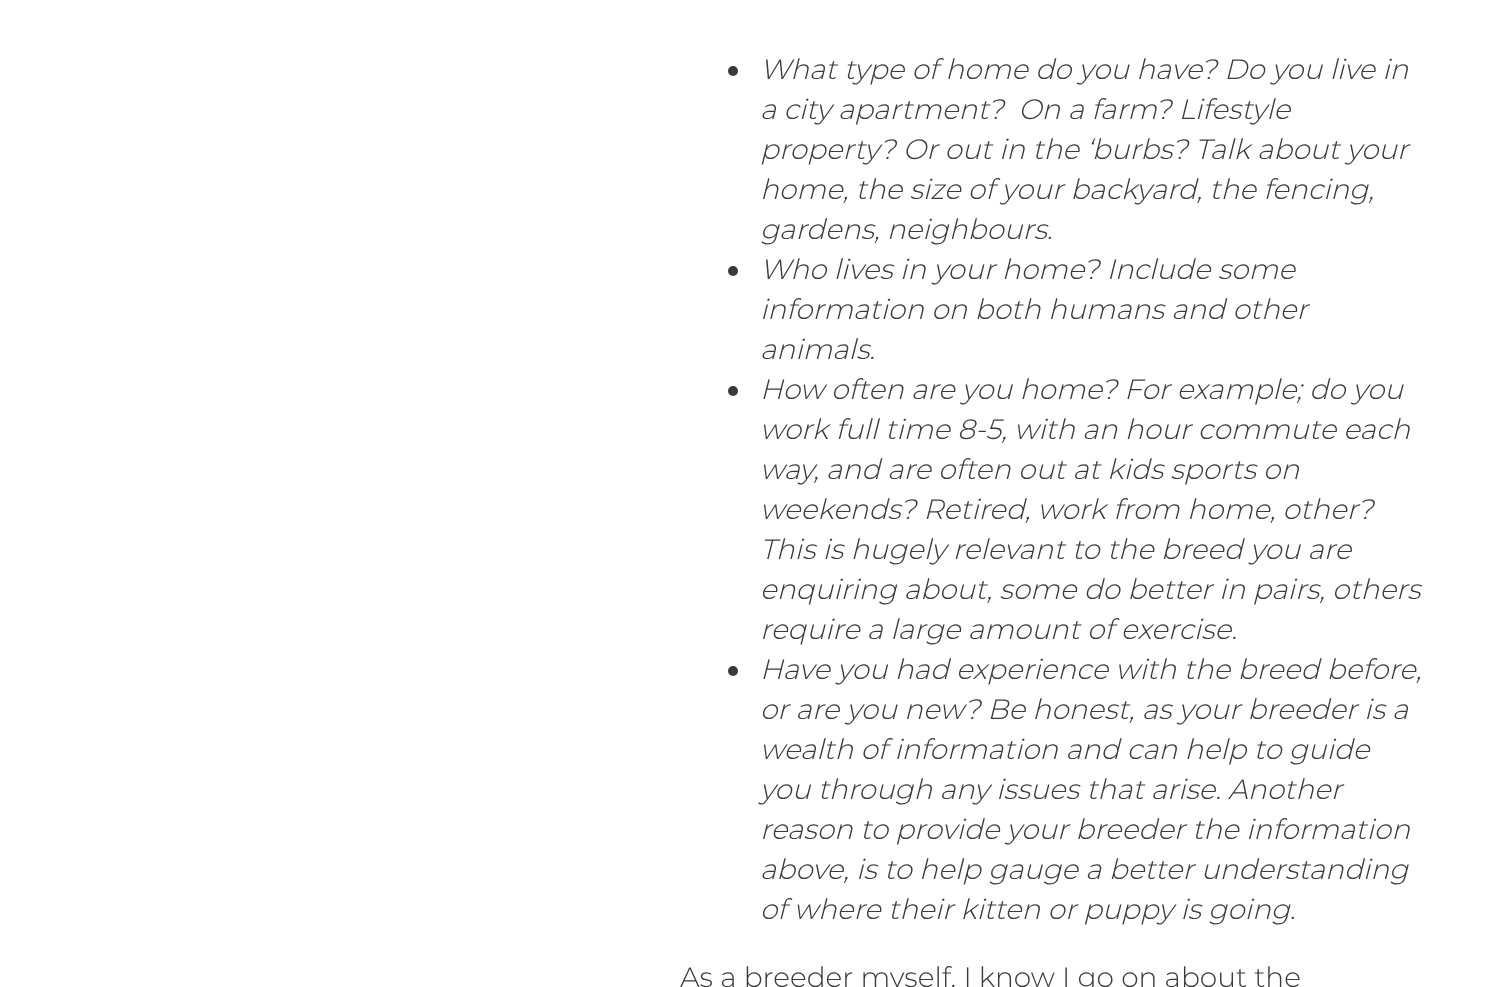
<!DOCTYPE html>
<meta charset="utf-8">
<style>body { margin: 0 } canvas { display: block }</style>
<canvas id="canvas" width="1503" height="987"></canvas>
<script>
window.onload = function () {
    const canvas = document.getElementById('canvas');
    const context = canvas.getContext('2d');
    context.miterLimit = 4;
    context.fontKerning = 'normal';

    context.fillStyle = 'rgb(255, 255, 255)';
    context.fillRect(0, 0, 1503, 987);
    context.fillStyle = 'rgb(58, 58, 58)';
    context.beginPath();
    context.arc(733, 71, 5, 0, 2 * Math.PI);
    context.fill();
    context.beginPath();
    context.arc(733, 271, 5, 0, 2 * Math.PI);
    context.fill();
    context.beginPath();
    context.arc(733, 391, 5, 0, 2 * Math.PI);
    context.fill();
    context.beginPath();
    context.arc(733, 671, 5, 0, 2 * Math.PI);
    context.fill();
    context.font = 'italic 300 28px Montserrat';
    context.fillText('What type of home do you have? Do you live in', 760, 79);
    context.fillText('a city apartment?  On a farm? Lifestyle', 760, 119);
    context.fillText('property? Or out in the ‘burbs? Talk about your', 760, 159);
    context.fillText('home, the size of your backyard, the fencing,', 760, 199);
    context.fillText('gardens, neighbours.', 760, 239);
    context.fillText('Who lives in your home? Include some', 760, 279);
    context.fillText('information on both humans and other', 760, 319);
    context.fillText('animals.', 760, 359);
    context.fillText('How often are you home? For example; do you', 760, 399);
    context.fillText('work full time 8-5, with an hour commute each', 760, 439);
    context.fillText('way, and are often out at kids sports on', 760, 479);
    context.fillText('weekends? Retired, work from home, other?', 760, 519);
    context.fillText('This is hugely relevant to the breed you are', 760, 559);
    context.fillText('enquiring about, some do better in pairs, others', 760, 599);
    context.fillText('require a large amount of exercise.', 760, 639);
    context.fillText('Have you had experience with the breed before,', 760, 679);
    context.fillText('or are you new? Be honest, as your breeder is a', 760, 719);
    context.fillText('wealth of information and can help to guide', 760, 759);
    context.fillText('you through any issues that arise. Another', 760, 799);
    context.fillText('reason to provide your breeder the information', 760, 839);
    context.fillText('above, is to help gauge a better understanding', 760, 879);
    context.fillText('of where their kitten or puppy is going.', 760, 919);
    context.font = '300 28px Montserrat';
    context.fillText('As a breeder myself, I know I go on about the', 680, 987);
};
</script>
